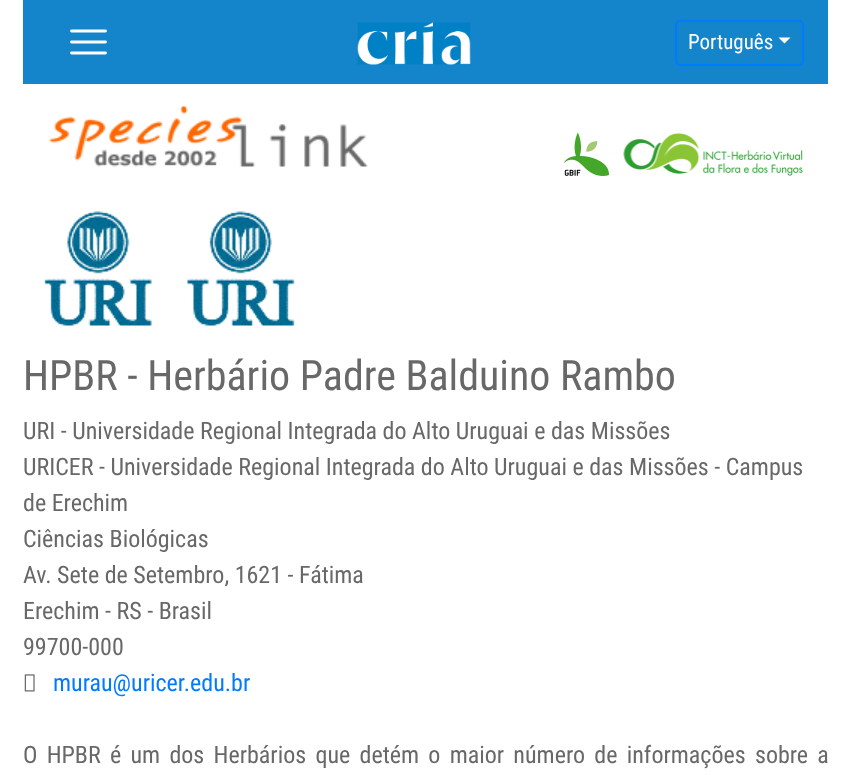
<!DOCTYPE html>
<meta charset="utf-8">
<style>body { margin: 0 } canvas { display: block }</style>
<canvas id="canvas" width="850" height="775"></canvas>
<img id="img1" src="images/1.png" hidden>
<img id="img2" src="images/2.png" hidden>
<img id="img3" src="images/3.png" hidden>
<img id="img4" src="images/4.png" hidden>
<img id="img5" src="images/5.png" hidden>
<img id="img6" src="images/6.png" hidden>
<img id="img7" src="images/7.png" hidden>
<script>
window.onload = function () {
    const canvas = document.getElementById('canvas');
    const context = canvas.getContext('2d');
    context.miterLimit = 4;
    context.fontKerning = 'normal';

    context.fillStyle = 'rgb(255, 255, 255)';
    context.fillRect(0, 0, 850, 775);
    context.fillStyle = 'rgb(20, 132, 203)';
    context.fillRect(23, 0, 805, 84);
    context.beginPath();
    context.moveTo(71.5, 31);
    context.lineTo(105.5, 31);
    context.moveTo(71.5, 42);
    context.lineTo(105.5, 42);
    context.moveTo(71.5, 53);
    context.lineTo(105.5, 53);
    context.strokeStyle = 'rgb(255, 255, 255)';
    context.lineWidth = 2.8;
    context.lineCap = 'round';
    context.stroke();
    context.drawImage(document.getElementById('img1'), 357, 22, 114, 43);
    context.beginPath();
    context.roundRect(676, 21, 127, 44, 4);
    context.strokeStyle = 'rgb(0, 123, 255)';
    context.lineWidth = 2;
    context.stroke();
    context.fillStyle = 'rgb(255, 255, 255)';
    context.beginPath();
    context.moveTo(778.5, 37.5);
    context.lineTo(790.5, 37.5);
    context.lineTo(784.5, 43.5);
    context.closePath();
    context.fill();
    context.drawImage(document.getElementById('img2'), 49, 106, 319, 61);
    context.drawImage(document.getElementById('img3'), 564, 132, 45, 44);
    context.drawImage(document.getElementById('img4'), 623, 133, 181, 43);
    context.drawImage(document.getElementById('img5'), 44, 211, 108, 116);
    context.drawImage(document.getElementById('img6'), 186, 211, 109, 116);
    context.drawImage(document.getElementById('img7'), 24, 674, 11, 18);
    context.font = '21px Roboto Condensed';
    context.fillText('Português', 688, 49);
    context.font = '42px Roboto Condensed';
    context.fillStyle = 'rgb(104, 104, 104)';
    context.fillText('HPBR - Herbário Padre Balduino Rambo', 23, 390);
    context.font = '24px Roboto Condensed';
    context.fillText('URI - Universidade Regional Integrada do Alto Uruguai e das Missões', 23, 439);
    context.fillText('URICER - Universidade Regional Integrada do Alto Uruguai e das Missões - Campus', 23, 475);
    context.fillText('de Erechim', 23, 511);
    context.fillText('Ciências Biológicas', 23, 547);
    context.fillText('Av. Sete de Setembro, 1621 - Fátima', 23, 583);
    context.fillText('Erechim - RS - Brasil', 23, 619);
    context.fillText('99700-000', 23, 655);
    context.fillStyle = 'rgb(0, 123, 255)';
    context.fillText('murau@uricer.edu.br', 53, 691);
    context.wordSpacing = '3.75px';
    context.fillStyle = 'rgb(104, 104, 104)';
    context.fillText('O HPBR é um dos Herbários que detém o maior número de informações sobre a', 23, 763);
};
</script>
